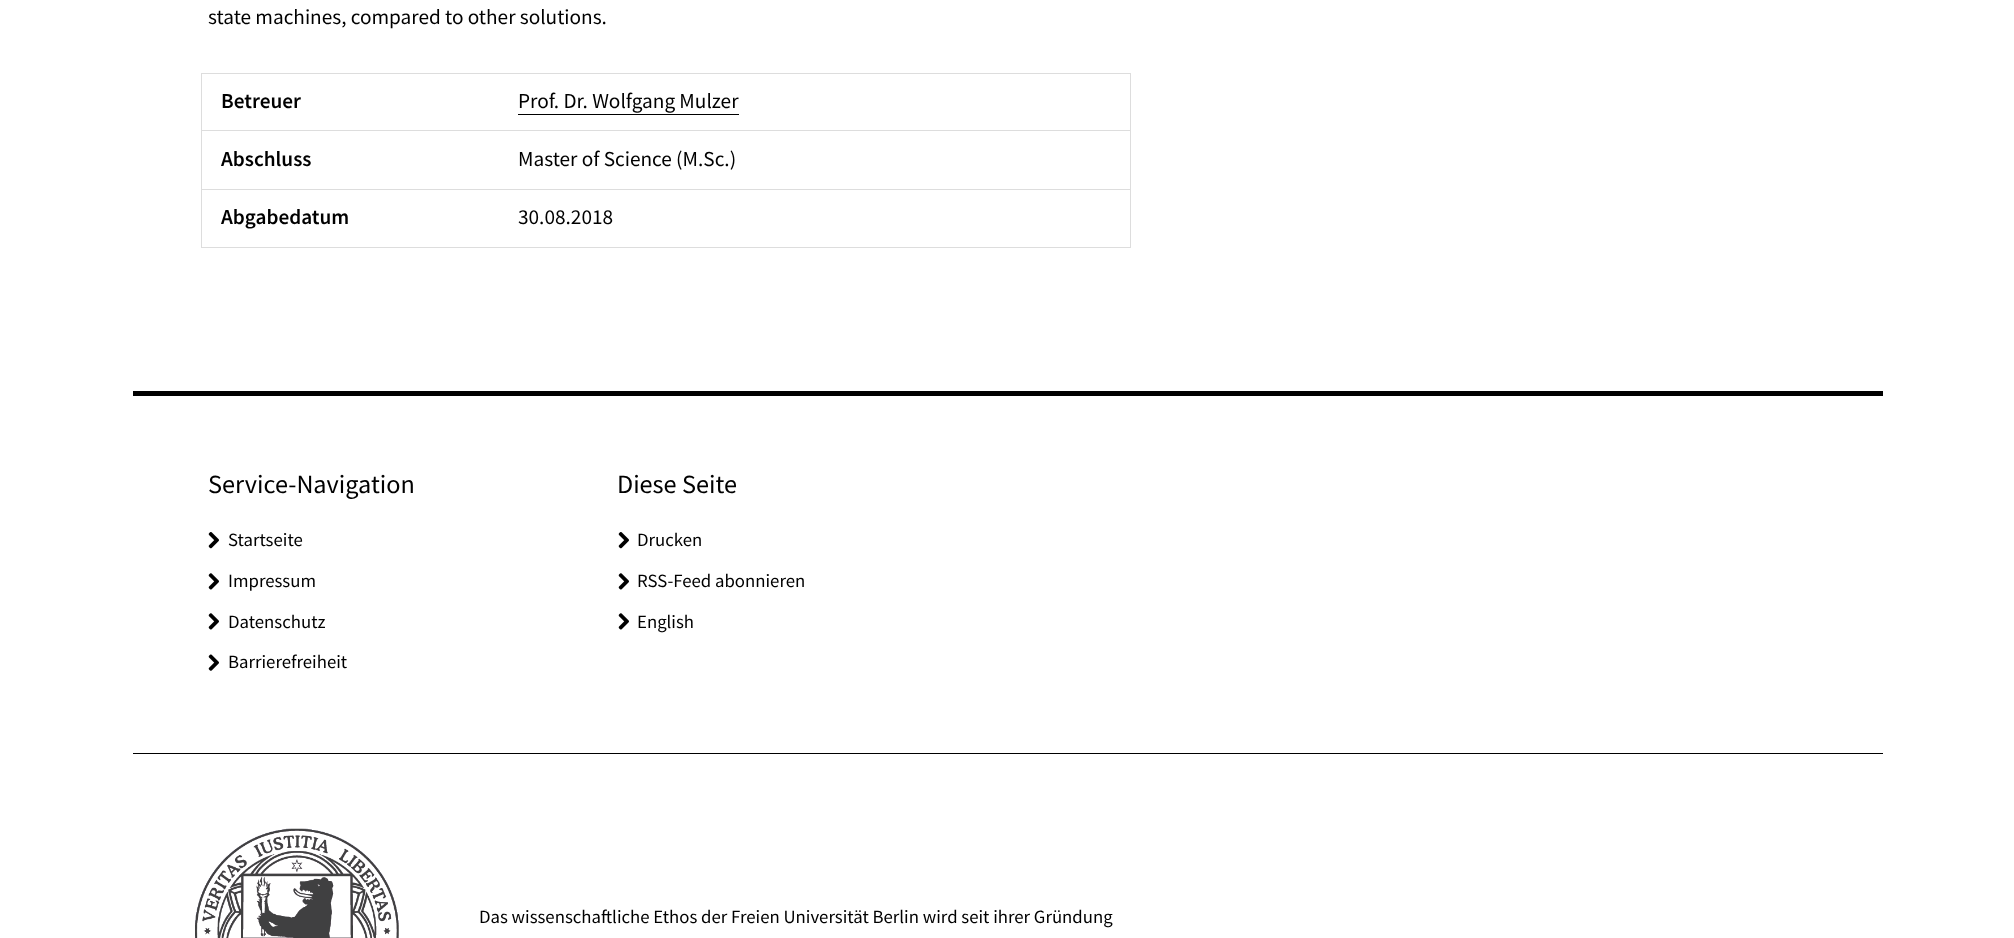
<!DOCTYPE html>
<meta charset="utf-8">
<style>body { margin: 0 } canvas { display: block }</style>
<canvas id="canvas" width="2014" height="938"></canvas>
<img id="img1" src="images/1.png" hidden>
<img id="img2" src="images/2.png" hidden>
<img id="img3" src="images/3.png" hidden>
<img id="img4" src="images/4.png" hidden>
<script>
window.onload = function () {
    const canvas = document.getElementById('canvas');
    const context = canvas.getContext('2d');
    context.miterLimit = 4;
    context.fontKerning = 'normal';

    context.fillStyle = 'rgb(255, 255, 255)';
    context.fillRect(0, 0, 2014, 938);
    context.strokeStyle = 'rgb(221, 221, 221)';
    context.strokeRect(201.5, 73.5, 929, 57);
    context.fillStyle = 'rgb(0, 0, 0)';
    context.fillRect(518, 114, 221, 1);
    context.strokeRect(201.5, 130.5, 929, 59);
    context.strokeRect(201.5, 189.5, 929, 58);
    context.fillRect(133, 391, 1750, 5);
    context.fillRect(133, 753, 1750, 1);
    context.drawImage(document.getElementById('img1'), 208, 532, 11, 17);
    context.drawImage(document.getElementById('img2'), 208, 573, 11, 17);
    context.drawImage(document.getElementById('img2'), 208, 613, 11, 17);
    context.drawImage(document.getElementById('img3'), 208, 654, 11, 17);
    context.drawImage(document.getElementById('img1'), 618, 532, 11, 17);
    context.drawImage(document.getElementById('img2'), 618, 573, 11, 17);
    context.drawImage(document.getElementById('img2'), 618, 613, 11, 17);
    context.drawImage(document.getElementById('img4'), 195, 828, 204, 110);
    context.font = '21.25px Source Sans Pro';
    context.fillText('state machines, compared to other solutions.', 208, 24);
    context.font = '600 21.25px Source Sans Pro';
    context.fillText('Betreuer', 221, 108);
    context.font = '21.25px Source Sans Pro';
    context.fillText('Prof. Dr. Wolfgang Mulzer', 518, 108);
    context.font = '600 21.25px Source Sans Pro';
    context.fillText('Abschluss', 221, 166);
    context.font = '21.25px Source Sans Pro';
    context.fillText('Master of Science (M.Sc.)', 518, 166);
    context.font = '600 21.25px Source Sans Pro';
    context.fillText('Abgabedatum', 221, 224);
    context.font = '21.25px Source Sans Pro';
    context.fillText('30.08.2018', 518, 224);
    context.font = '26.25px Source Sans Pro';
    context.fillText('Service-Navigation', 208, 493);
    context.font = '18.75px Source Sans Pro';
    context.fillText('Startseite', 228, 546);
    context.fillText('Impressum', 228, 587);
    context.fillText('Datenschutz', 228, 628);
    context.fillText('Barrierefreiheit', 228, 668);
    context.font = '26.25px Source Sans Pro';
    context.fillText('Diese Seite', 617, 493);
    context.font = '18.75px Source Sans Pro';
    context.fillText('Drucken', 637, 546);
    context.fillText('RSS-Feed abonnieren', 637, 587);
    context.fillText('English', 637, 628);
    context.fillText('Das wissenschaftliche Ethos der Freien Universität Berlin wird seit ihrer Gründung', 479, 923);
};
</script>
